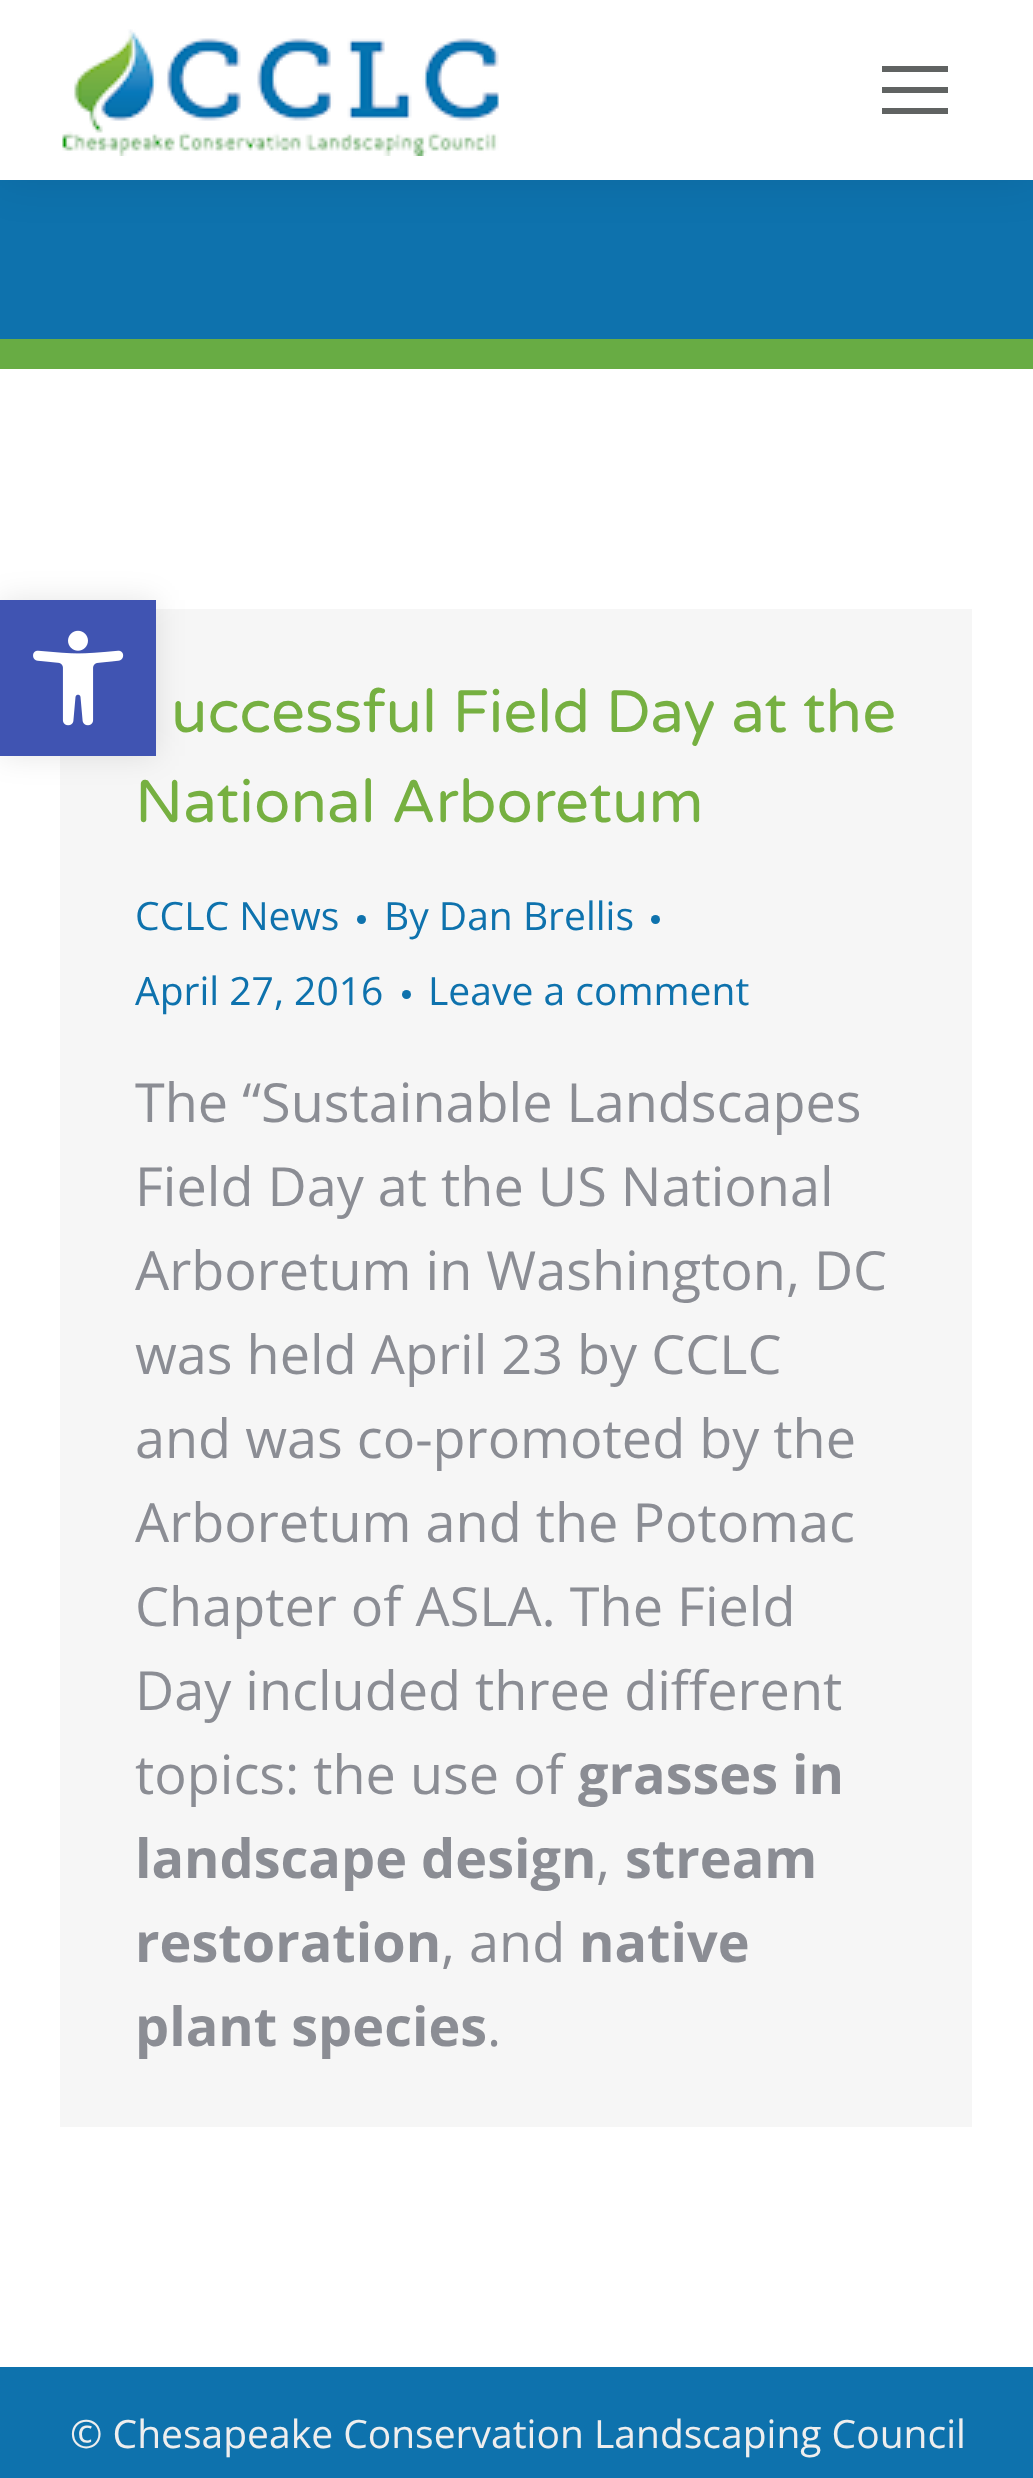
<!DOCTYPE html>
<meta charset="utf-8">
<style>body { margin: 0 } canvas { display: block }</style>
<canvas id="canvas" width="1033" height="2478"></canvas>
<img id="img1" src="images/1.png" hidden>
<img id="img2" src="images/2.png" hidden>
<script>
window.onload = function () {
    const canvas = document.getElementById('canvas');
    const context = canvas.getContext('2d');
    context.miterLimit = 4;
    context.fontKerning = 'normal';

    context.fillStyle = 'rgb(255, 255, 255)';
    context.fillRect(0, 0, 1033, 2478);
    context.fillStyle = 'rgb(246, 246, 246)';
    context.fillRect(60, 609, 912, 1518);
    context.fillStyle = 'rgba(0, 0, 0, 0.1)';
    context.filter = 'blur(15px)';
    context.beginPath();
    context.rect(0, 600, 156, 156);
    context.fill();
    context.filter = 'none';
    context.fillStyle = 'rgb(64, 84, 178)';
    context.fillRect(0, 600, 156, 156);
    context.drawImage(document.getElementById('img1'), 33, 630, 91, 96);
    context.fillStyle = 'rgb(14, 114, 173)';
    context.fillRect(0, 180, 1033, 159);
    context.fillStyle = 'rgba(0, 0, 0, 0.07)';
    context.filter = 'blur(22.5px)';
    context.beginPath();
    context.rect(-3, -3, 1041, 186);
    context.fill();
    context.filter = 'none';
    context.fillStyle = 'rgb(255, 255, 255)';
    context.fillRect(0, 0, 1033, 180);
    context.drawImage(document.getElementById('img2'), 62, 29, 437, 127);
    context.fillStyle = 'rgb(96, 99, 98)';
    context.fillRect(882, 66, 66, 6);
    context.fillRect(882, 87, 66, 6);
    context.fillRect(882, 108, 66, 6);
    context.fillStyle = 'rgb(104, 172, 68)';
    context.fillRect(0, 339, 1033, 30);
    context.fillStyle = 'rgb(14, 114, 173)';
    context.beginPath();
    context.arc(361.5, 919.5, 4.5, 0, 2 * Math.PI);
    context.fill();
    context.beginPath();
    context.arc(655.5, 919.5, 4.5, 0, 2 * Math.PI);
    context.fill();
    context.beginPath();
    context.arc(406.5, 994.5, 4.5, 0, 2 * Math.PI);
    context.fill();
    context.fillRect(0, 2367, 1033, 111);
    context.font = '60px Varela Round';
    context.fillStyle = 'rgb(118, 176, 65)';
    context.fillText('uccessful Field Day at the', 171, 732);
    context.fillText('National Arboretum', 135, 822);
    context.font = '39px Open Sans';
    context.fillStyle = 'rgb(14, 114, 173)';
    context.fillText('CCLC News', 135, 930);
    context.fillText('By Dan Brellis', 384, 930);
    context.fillText('April 27, 2016', 135, 1005);
    context.fillText('Leave a comment', 428, 1005);
    context.font = '54px Open Sans';
    context.fillStyle = 'rgb(139, 141, 148)';
    context.fillText('The “Sustainable Landscapes', 135, 1122);
    context.fillText('Field Day at the US National', 135, 1206);
    context.fillText('Arboretum in Washington, DC', 135, 1290);
    context.fillText('was held April 23 by CCLC', 135, 1374);
    context.fillText('and was co-promoted by the', 135, 1458);
    context.fillText('Arboretum and the Potomac', 135, 1542);
    context.fillText('Chapter of ASLA. The Field', 135, 1626);
    context.fillText('Day included three different', 135, 1710);
    context.fillText('topics: the use of', 135, 1794);
    context.font = 'bold 54px Open Sans';
    context.fillText('grasses in', 578, 1794);
    context.fillText('landscape design', 135, 1878);
    context.font = '54px Open Sans';
    context.fillText(',', 596, 1878);
    context.font = 'bold 54px Open Sans';
    context.fillText('stream', 625, 1878);
    context.fillText('restoration', 135, 1962);
    context.font = '54px Open Sans';
    context.fillText(', and', 441, 1962);
    context.font = 'bold 54px Open Sans';
    context.fillText('native', 579, 1962);
    context.fillText('plant species', 135, 2046);
    context.font = '54px Open Sans';
    context.fillText('.', 487, 2046);
    context.font = '39px Open Sans';
    context.fillStyle = 'rgb(238, 238, 238)';
    context.fillText('© Chesapeake Conservation Landscaping Council', 70, 2448);
};
</script>
